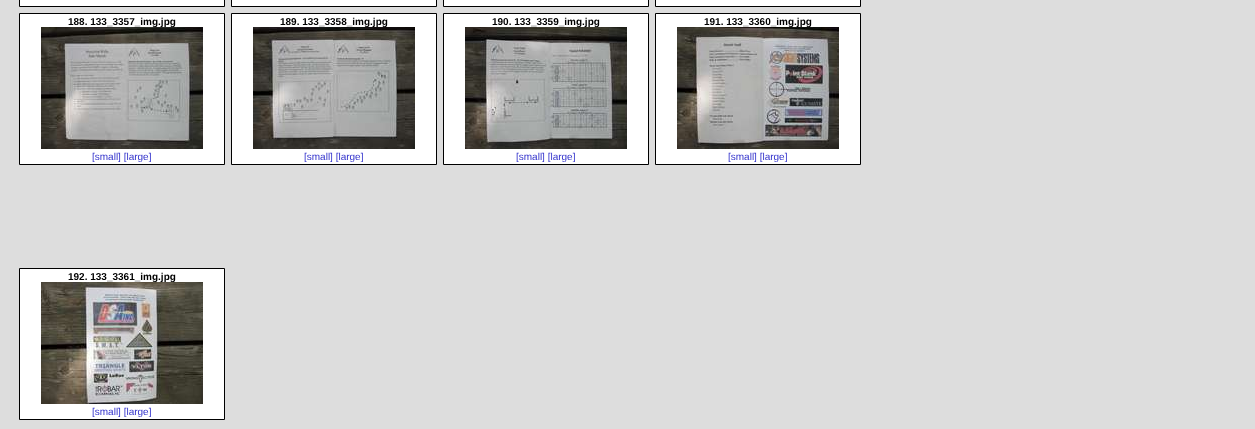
<!DOCTYPE html>
<meta charset="utf-8">
<style>body { margin: 0 } canvas { display: block }</style>
<canvas id="canvas" width="1255" height="429"></canvas>
<img id="img1" src="images/1.png" hidden>
<img id="img2" src="images/2.png" hidden>
<img id="img3" src="images/3.png" hidden>
<img id="img4" src="images/4.png" hidden>
<img id="img5" src="images/5.png" hidden>
<script>
window.onload = function () {
    const canvas = document.getElementById('canvas');
    const context = canvas.getContext('2d');
    context.miterLimit = 4;
    context.fontKerning = 'normal';

    context.fillStyle = 'rgb(221, 221, 221)';
    context.fillRect(0, 0, 1255, 429);
    context.fillStyle = 'rgb(255, 255, 255)';
    context.beginPath();
    context.rect(19.5, -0.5, 205, 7);
    context.fill();
    context.strokeStyle = 'rgb(0, 0, 0)';
    context.stroke();
    context.beginPath();
    context.rect(231.5, -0.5, 205, 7);
    context.fill();
    context.stroke();
    context.beginPath();
    context.rect(443.5, -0.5, 205, 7);
    context.fill();
    context.stroke();
    context.beginPath();
    context.rect(655.5, -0.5, 205, 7);
    context.fill();
    context.stroke();
    context.beginPath();
    context.rect(19.5, 13.5, 205, 151);
    context.fill();
    context.stroke();
    context.beginPath();
    context.rect(231.5, 13.5, 205, 151);
    context.fill();
    context.stroke();
    context.beginPath();
    context.rect(443.5, 13.5, 205, 151);
    context.fill();
    context.stroke();
    context.beginPath();
    context.rect(655.5, 13.5, 205, 151);
    context.fill();
    context.stroke();
    context.beginPath();
    context.rect(19.5, 268.5, 205, 151);
    context.fill();
    context.stroke();
    context.font = 'bold 10px Liberation Sans';
    context.fillStyle = 'rgb(0, 0, 0)';
    context.fillText('188. 133_3357_img.jpg', 68, 25);
    context.drawImage(document.getElementById('img1'), 41, 27, 162, 122);
    context.font = '10px Liberation Sans';
    context.fillStyle = 'rgb(51, 51, 204)';
    context.fillText('[small] [large]', 92, 160);
    context.font = 'bold 10px Liberation Sans';
    context.fillStyle = 'rgb(0, 0, 0)';
    context.fillText('189. 133_3358_img.jpg', 280, 25);
    context.drawImage(document.getElementById('img2'), 253, 27, 162, 122);
    context.font = '10px Liberation Sans';
    context.fillStyle = 'rgb(51, 51, 204)';
    context.fillText('[small] [large]', 304, 160);
    context.font = 'bold 10px Liberation Sans';
    context.fillStyle = 'rgb(0, 0, 0)';
    context.fillText('190. 133_3359_img.jpg', 492, 25);
    context.drawImage(document.getElementById('img3'), 465, 27, 162, 122);
    context.font = '10px Liberation Sans';
    context.fillStyle = 'rgb(51, 51, 204)';
    context.fillText('[small] [large]', 516, 160);
    context.font = 'bold 10px Liberation Sans';
    context.fillStyle = 'rgb(0, 0, 0)';
    context.fillText('191. 133_3360_img.jpg', 704, 25);
    context.drawImage(document.getElementById('img4'), 677, 27, 162, 122);
    context.font = '10px Liberation Sans';
    context.fillStyle = 'rgb(51, 51, 204)';
    context.fillText('[small] [large]', 728, 160);
    context.font = 'bold 10px Liberation Sans';
    context.fillStyle = 'rgb(0, 0, 0)';
    context.fillText('192. 133_3361_img.jpg', 68, 280);
    context.drawImage(document.getElementById('img5'), 41, 282, 162, 122);
    context.font = '10px Liberation Sans';
    context.fillStyle = 'rgb(51, 51, 204)';
    context.fillText('[small] [large]', 92, 415);
};
</script>
